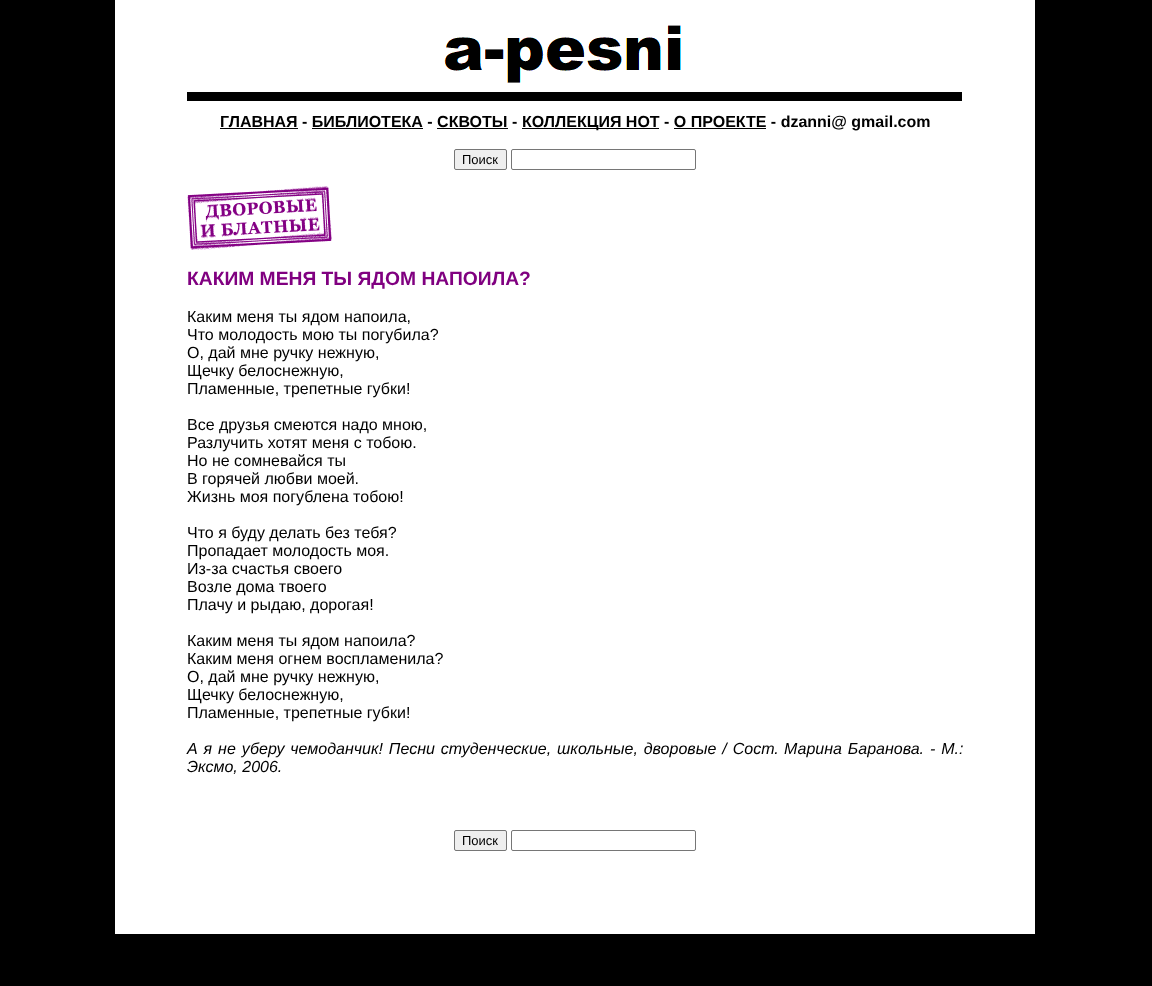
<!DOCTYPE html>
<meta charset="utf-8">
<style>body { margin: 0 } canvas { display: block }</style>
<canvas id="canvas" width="1152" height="986"></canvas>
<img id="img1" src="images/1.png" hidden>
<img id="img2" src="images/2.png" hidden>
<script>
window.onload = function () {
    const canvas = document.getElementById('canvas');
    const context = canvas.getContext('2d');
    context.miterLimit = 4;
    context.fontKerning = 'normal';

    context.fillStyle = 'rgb(0, 0, 0)';
    context.fillRect(0, 0, 1152, 986);
    context.fillStyle = 'rgb(255, 255, 255)';
    context.fillRect(115, 0, 920, 131);
    context.drawImage(document.getElementById('img1'), 187, 25, 775, 76);
    context.fillStyle = 'rgb(0, 0, 0)';
    context.fillRect(220, 128, 78, 1);
    context.fillRect(312, 128, 111, 1);
    context.fillRect(437, 128, 71, 1);
    context.fillRect(522, 128, 137, 1);
    context.fillRect(674, 128, 92, 1);
    context.fillStyle = 'rgb(255, 255, 255)';
    context.fillRect(115, 131, 920, 55);
    context.fillStyle = 'rgb(239, 239, 239)';
    context.beginPath();
    context.roundRect(454.5, 149.5, 52, 20, 1.5);
    context.fill();
    context.strokeStyle = 'rgb(118, 118, 118)';
    context.stroke();
    context.beginPath();
    context.roundRect(511.5, 149.5, 184, 20, 1.5);
    context.stroke();
    context.fillStyle = 'rgb(255, 255, 255)';
    context.fillRect(115, 186, 920, 626);
    context.drawImage(document.getElementById('img2'), 187, 186, 145, 64);
    context.fillRect(115, 812, 920, 122);
    context.fillStyle = 'rgb(239, 239, 239)';
    context.beginPath();
    context.roundRect(454.5, 830.5, 52, 20, 1.5);
    context.fill();
    context.stroke();
    context.beginPath();
    context.roundRect(511.5, 830.5, 184, 20, 1.5);
    context.stroke();
    context.font = 'bold 16px Liberation Sans';
    context.fillStyle = 'rgb(0, 0, 0)';
    context.fillText('ГЛАВНАЯ - БИБЛИОТЕКА - СКВОТЫ -', 220, 127);
    context.fillText('КОЛЛЕКЦИЯ НОТ - О ПРОЕКТЕ - dzanni@ gmail.com', 522, 127);
    context.font = '13px Liberation Sans';
    context.fillText('Поиск', 462, 164);
    context.font = 'bold 19.25px Liberation Sans';
    context.fillStyle = 'rgb(128, 0, 128)';
    context.fillText('КАКИМ МЕНЯ ТЫ ЯДОМ НАПОИЛА?', 187, 285);
    context.font = '16px Liberation Sans';
    context.fillStyle = 'rgb(0, 0, 0)';
    context.fillText('Каким меня ты ядом напоила,', 187, 322);
    context.fillText('Что молодость мою ты погубила?', 187, 340);
    context.fillText('О, дай мне ручку нежную,', 187, 358);
    context.fillText('Щечку белоснежную,', 187, 376);
    context.fillText('Пламенные, трепетные губки!', 187, 394);
    context.fillText('Все друзья смеются надо мною,', 187, 430);
    context.fillText('Разлучить хотят меня с тобою.', 187, 448);
    context.fillText('Но не сомневайся ты', 187, 466);
    context.fillText('В горячей любви моей.', 187, 484);
    context.fillText('Жизнь моя погублена тобою!', 187, 502);
    context.fillText('Что я буду делать без тебя?', 187, 538);
    context.fillText('Пропадает молодость моя.', 187, 556);
    context.fillText('Из-за счастья своего', 187, 574);
    context.fillText('Возле дома твоего', 187, 592);
    context.fillText('Плачу и рыдаю, дорогая!', 187, 610);
    context.fillText('Каким меня ты ядом напоила?', 187, 646);
    context.fillText('Каким меня огнем воспламенила?', 187, 664);
    context.fillText('О, дай мне ручку нежную,', 187, 682);
    context.fillText('Щечку белоснежную,', 187, 700);
    context.fillText('Пламенные, трепетные губки!', 187, 718);
    context.wordSpacing = '1.5px';
    context.font = 'italic 16px Liberation Sans';
    context.fillText('А я не уберу чемоданчик! Песни студенческие, школьные, дворовые / Сост.', 187, 754);
    context.fillText('Марина Баранова. - М.:', 784, 754);
    context.wordSpacing = '0px';
    context.fillText('Эксмо, 2006.', 187, 772);
    context.font = '13px Liberation Sans';
    context.fillText('Поиск', 462, 845);
};
</script>
